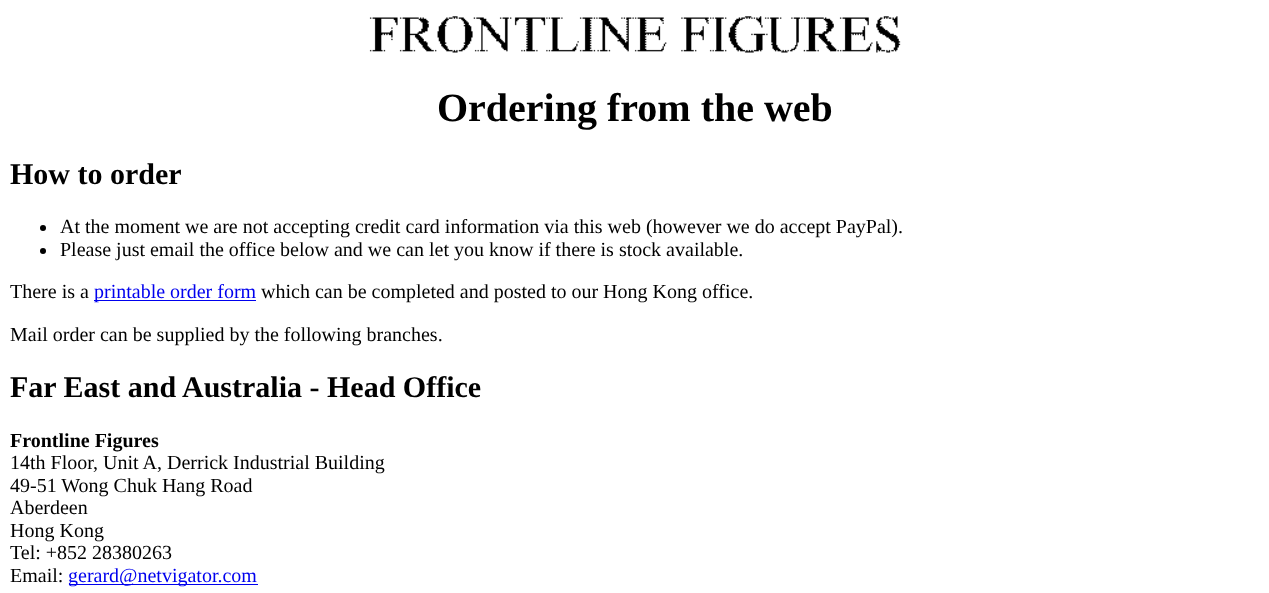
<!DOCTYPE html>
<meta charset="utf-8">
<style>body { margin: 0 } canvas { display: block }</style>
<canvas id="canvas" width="1269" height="593"></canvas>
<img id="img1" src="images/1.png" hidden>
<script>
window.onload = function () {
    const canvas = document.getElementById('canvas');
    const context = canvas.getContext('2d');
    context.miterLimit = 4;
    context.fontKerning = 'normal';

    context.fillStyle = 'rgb(255, 255, 255)';
    context.fillRect(0, 0, 1269, 593);
    context.drawImage(document.getElementById('img1'), 369, 16, 532, 37);
    context.fillStyle = 'rgb(0, 0, 0)';
    context.beginPath();
    context.arc(43, 228, 3, 0, 2 * Math.PI);
    context.fill();
    context.beginPath();
    context.arc(43, 251, 3, 0, 2 * Math.PI);
    context.fill();
    context.fillStyle = 'rgb(0, 0, 238)';
    context.fillRect(94, 300, 162, 1);
    context.fillRect(69, 584, 189, 1);
    context.font = 'bold 40px Liberation Serif';
    context.fillStyle = 'rgb(0, 0, 0)';
    context.fillText('Ordering from the web', 437, 121);
    context.font = 'bold 30px Liberation Serif';
    context.fillText('How to order', 10, 184);
    context.font = '20px Liberation Serif';
    context.fillText('At the moment we are not accepting credit card information via this web (however we do accept PayPal).', 60, 233);
    context.fillText('Please just email the office below and we can let you know if there is stock available.', 60, 256);
    context.fillText('There is a', 10, 298);
    context.fillStyle = 'rgb(0, 0, 238)';
    context.fillText('printable order form', 94, 298);
    context.fillStyle = 'rgb(0, 0, 0)';
    context.fillText('which can be completed and posted to our Hong Kong office.', 261, 298);
    context.fillText('Mail order can be supplied by the following branches.', 10, 341);
    context.font = 'bold 30px Liberation Serif';
    context.fillText('Far East and Australia - Head Office', 10, 397);
    context.font = 'bold 20px Liberation Serif';
    context.fillText('Frontline Figures', 10, 447);
    context.font = '20px Liberation Serif';
    context.fillText('14th Floor, Unit A, Derrick Industrial Building', 10, 469);
    context.fillText('49-51 Wong Chuk Hang Road', 10, 492);
    context.fillText('Aberdeen', 10, 514);
    context.fillText('Hong Kong', 10, 537);
    context.fillText('Tel: +852 28380263', 10, 559);
    context.fillText('Email:', 10, 582);
    context.fillStyle = 'rgb(0, 0, 238)';
    context.fillText('gerard@netvigator.com', 68, 582);
};
</script>
